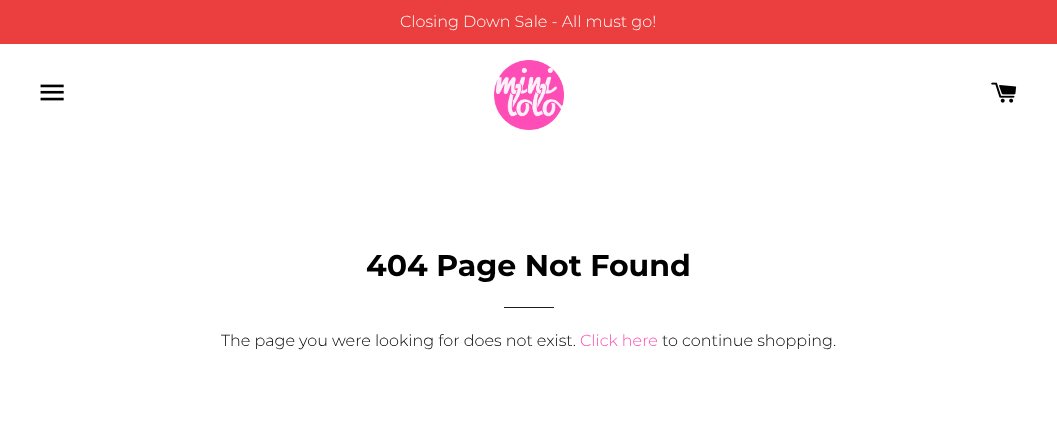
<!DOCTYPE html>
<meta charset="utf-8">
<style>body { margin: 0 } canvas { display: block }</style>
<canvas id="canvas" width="1057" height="432"></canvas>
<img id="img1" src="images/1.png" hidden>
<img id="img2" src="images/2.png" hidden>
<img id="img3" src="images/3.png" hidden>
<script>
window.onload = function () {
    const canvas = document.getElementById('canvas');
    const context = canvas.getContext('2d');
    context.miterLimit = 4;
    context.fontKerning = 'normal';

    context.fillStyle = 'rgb(255, 255, 255)';
    context.fillRect(0, 0, 1057, 432);
    context.fillStyle = 'rgb(235, 62, 62)';
    context.fillRect(0, 0, 1057, 44);
    context.drawImage(document.getElementById('img1'), 40, 84, 24, 17);
    context.drawImage(document.getElementById('img2'), 494, 60, 70, 70);
    context.drawImage(document.getElementById('img3'), 991, 82, 26, 21);
    context.fillStyle = 'rgb(28, 29, 29)';
    context.fillRect(504, 307, 50, 1);
    context.font = '300 16px Montserrat';
    context.fillStyle = 'rgb(255, 255, 255)';
    context.fillText('Closing Down Sale - All must go!', 400, 27);
    context.font = 'bold 30px Montserrat';
    context.fillStyle = 'rgb(0, 0, 0)';
    context.fillText('404 Page Not Found', 366, 276);
    context.font = '300 16px Montserrat';
    context.fillText('The page you were looking for does not exist.', 221, 346);
    context.fillStyle = 'rgb(254, 77, 183)';
    context.fillText('Click here', 580, 346);
    context.fillStyle = 'rgb(0, 0, 0)';
    context.fillText('to continue shopping.', 662, 346);
};
</script>
